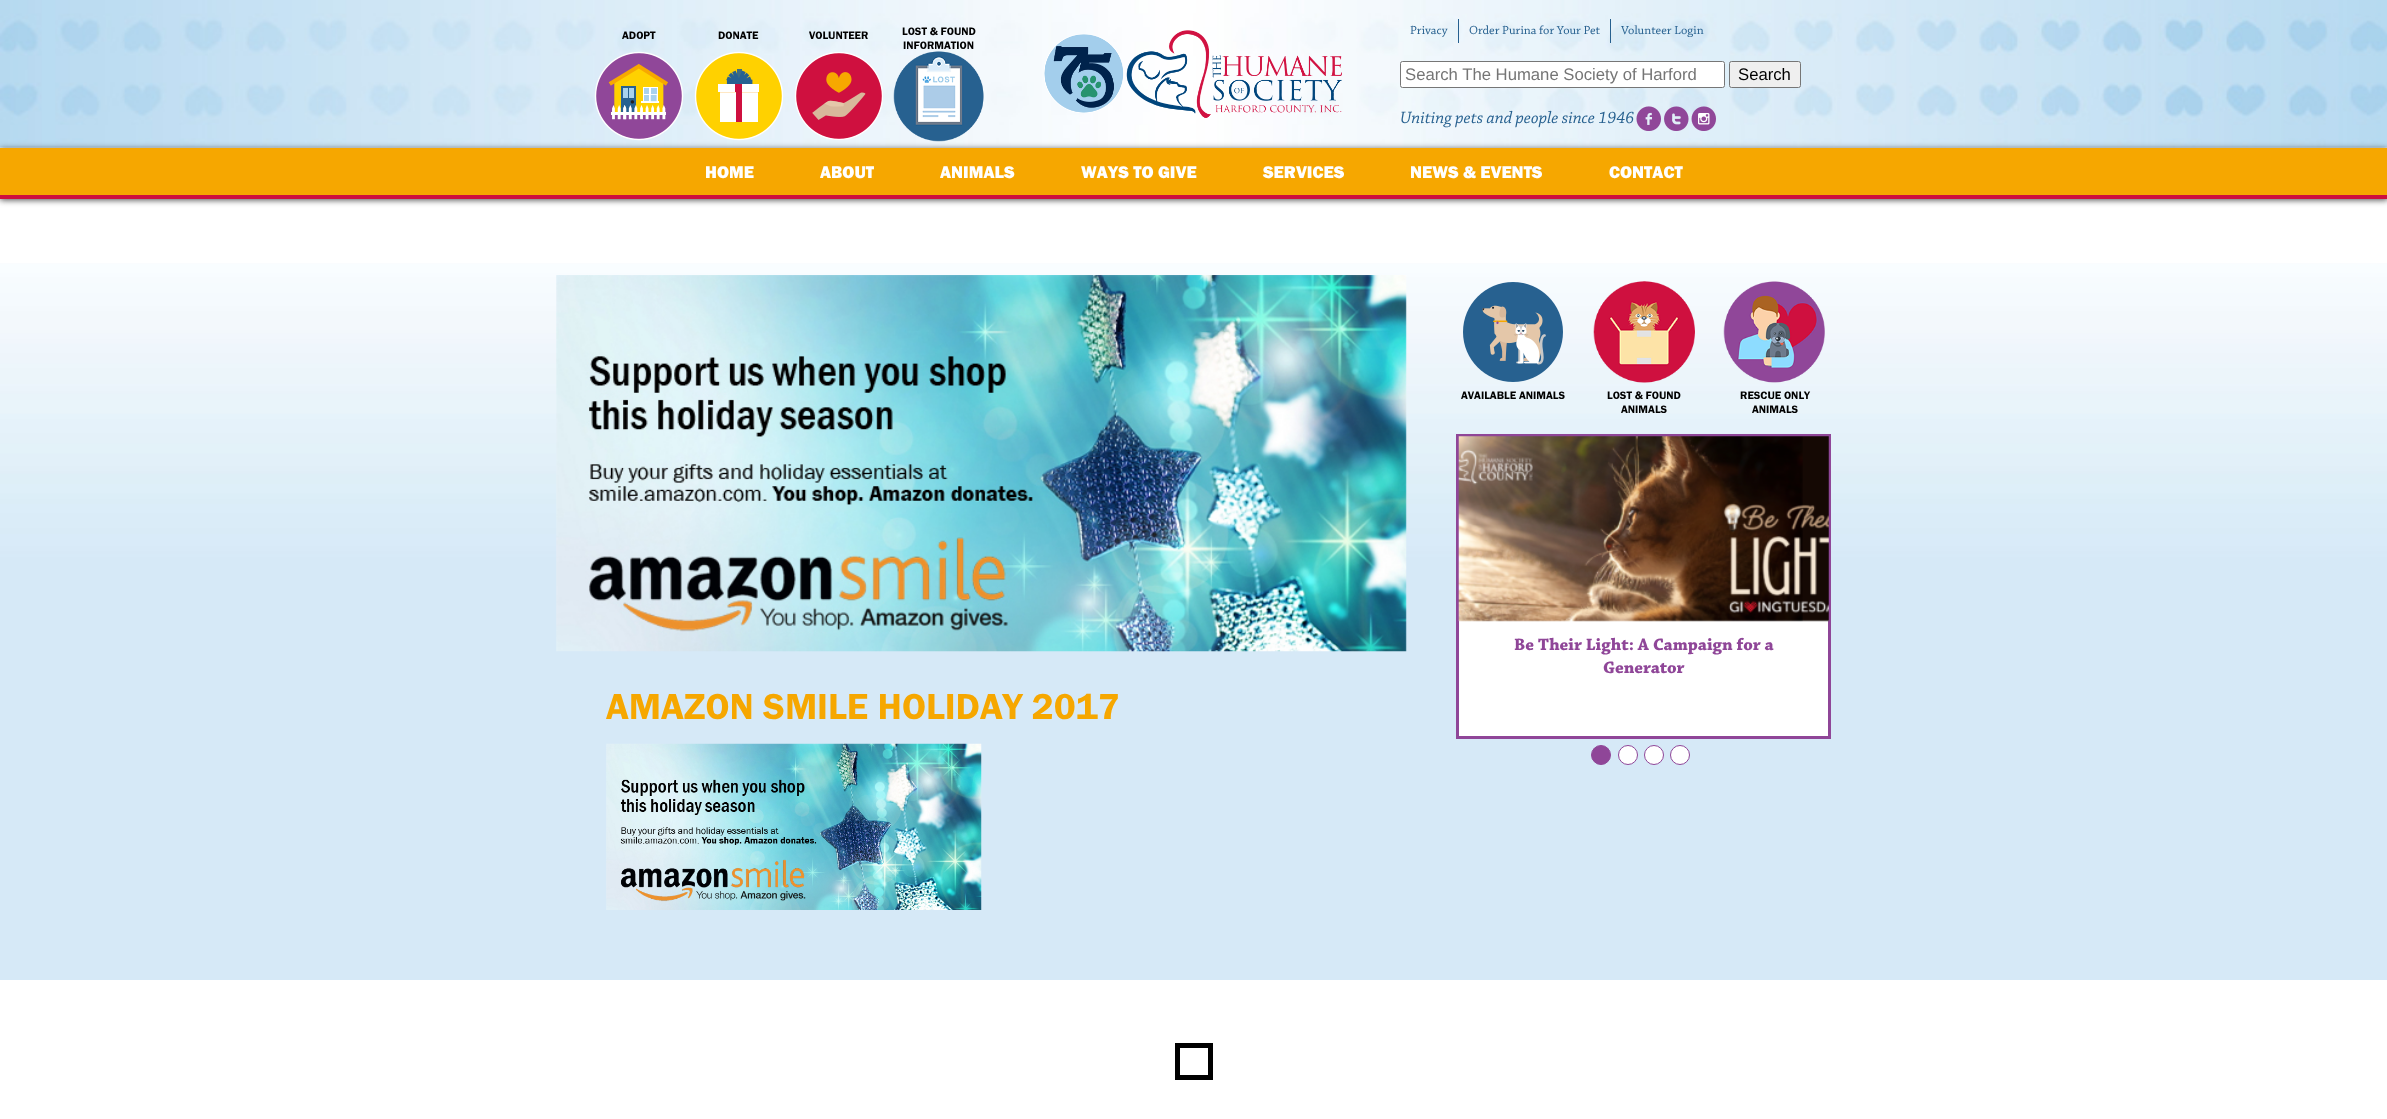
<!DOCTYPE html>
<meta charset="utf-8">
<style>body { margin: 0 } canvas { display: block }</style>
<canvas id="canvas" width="2387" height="1119"></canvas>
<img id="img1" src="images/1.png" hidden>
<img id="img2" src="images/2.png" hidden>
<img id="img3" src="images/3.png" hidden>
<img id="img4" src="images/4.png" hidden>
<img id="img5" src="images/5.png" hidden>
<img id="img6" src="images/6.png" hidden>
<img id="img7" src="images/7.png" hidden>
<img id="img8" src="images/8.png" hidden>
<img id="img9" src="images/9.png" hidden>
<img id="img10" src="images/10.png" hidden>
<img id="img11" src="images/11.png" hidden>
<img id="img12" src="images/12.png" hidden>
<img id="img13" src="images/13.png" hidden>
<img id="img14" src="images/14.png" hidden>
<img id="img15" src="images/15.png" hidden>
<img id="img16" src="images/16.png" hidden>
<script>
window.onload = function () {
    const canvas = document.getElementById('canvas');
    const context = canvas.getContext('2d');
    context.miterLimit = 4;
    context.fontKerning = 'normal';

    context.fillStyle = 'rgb(255, 255, 255)';
    context.fillRect(0, 0, 2387, 1119);
    context.drawImage(document.getElementById('img1'), 0, 0, 2387, 148);
    context.drawImage(document.getElementById('img2'), 594, 51, 90, 90);
    context.drawImage(document.getElementById('img3'), 694, 51, 90, 90);
    context.drawImage(document.getElementById('img4'), 794, 52, 89, 88);
    context.drawImage(document.getElementById('img5'), 893, 51, 91, 91);
    context.drawImage(document.getElementById('img6'), 1044, 30, 298, 88);
    context.fillStyle = 'rgb(38, 96, 143)';
    context.fillRect(1458, 19, 1, 24);
    context.fillRect(1610, 19, 1, 24);
    context.fillStyle = 'rgb(255, 255, 255)';
    context.beginPath();
    context.roundRect(1400.5, 61.5, 324, 26, 2);
    context.fill();
    context.strokeStyle = 'rgb(118, 118, 118)';
    context.stroke();
    context.fillStyle = 'rgb(239, 239, 239)';
    context.beginPath();
    context.roundRect(1729.5, 61.5, 71, 26, 2);
    context.fill();
    context.stroke();
    context.drawImage(document.getElementById('img7'), 1636, 106, 25, 25);
    context.drawImage(document.getElementById('img8'), 1664, 106, 25, 25);
    context.drawImage(document.getElementById('img9'), 1691, 106, 25, 25);
    context.fillStyle = 'rgb(74, 74, 74)';
    context.filter = 'blur(3px)';
    context.beginPath();
    context.rect(0, 149, 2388, 51);
    context.fill();
    context.filter = 'none';
    context.fillStyle = 'rgb(246, 167, 0)';
    context.fillRect(0, 148, 2387, 47);
    context.fillStyle = 'rgb(206, 15, 62)';
    context.fillRect(0, 195, 2387, 4);
    context.drawImage(document.getElementById('img10'), 0, 263, 2387, 717);
    context.drawImage(document.getElementById('img11'), 1463, 282, 100, 100);
    context.drawImage(document.getElementById('img12'), 1593, 281, 102, 102);
    context.drawImage(document.getElementById('img13'), 1723, 281, 102, 102);
    context.fillStyle = 'rgb(255, 255, 255)';
    context.fillRect(1459, 621, 369, 115);
    context.strokeStyle = 'rgb(143, 70, 152)';
    context.lineWidth = 3;
    context.strokeRect(1457.5, 435.5, 372, 302);
    context.drawImage(document.getElementById('img14'), 1458, 436, 371, 186);
    context.fillStyle = 'rgb(143, 70, 152)';
    context.beginPath();
    context.arc(1601, 755, 9.5, 0, 2 * Math.PI);
    context.fill();
    context.lineWidth = 1;
    context.stroke();
    context.fillStyle = 'rgb(255, 255, 255)';
    context.beginPath();
    context.arc(1628, 755, 9.5, 0, 2 * Math.PI);
    context.fill();
    context.stroke();
    context.beginPath();
    context.arc(1654, 755, 9.5, 0, 2 * Math.PI);
    context.fill();
    context.stroke();
    context.beginPath();
    context.arc(1680, 755, 9.5, 0, 2 * Math.PI);
    context.fill();
    context.stroke();
    context.drawImage(document.getElementById('img15'), 556, 275, 851, 377);
    context.drawImage(document.getElementById('img16'), 606, 743, 376, 167);
    context.strokeStyle = 'rgb(0, 0, 0)';
    context.lineWidth = 5;
    context.strokeRect(1177.5, 1045.5, 33, 32);
    context.font = '11.25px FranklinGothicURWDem';
    context.fillStyle = 'rgb(0, 0, 0)';
    context.fillText('ADOPT', 622, 39);
    context.fillText('DONATE', 718, 39);
    context.fillText('VOLUNTEER', 809, 39);
    context.fillText('LOST & FOUND', 902, 35);
    context.fillText('INFORMATION', 903, 49);
    context.font = '12.5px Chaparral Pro';
    context.fillStyle = 'rgb(38, 96, 143)';
    context.fillText('Privacy', 1410, 34);
    context.fillText('Order Purina for Your Pet', 1469, 34);
    context.fillText('Volunteer Login', 1621, 34);
    context.font = '16.7px Liberation Sans';
    context.fillStyle = 'rgb(117, 117, 117)';
    context.fillText('Search The Humane Society of Harford', 1405, 80);
    context.fillStyle = 'rgb(0, 0, 0)';
    context.fillText('Search', 1738, 80);
    context.font = 'italic 17.5px Chaparral Pro';
    context.fillStyle = 'rgb(38, 96, 143)';
    context.fillText('Uniting pets and people since 1946', 1400, 123);
    context.font = '900 17.5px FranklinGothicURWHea';
    context.fillStyle = 'rgb(255, 255, 255)';
    context.fillText('HOME', 705, 178);
    context.fillText('ABOUT', 820, 178);
    context.fillText('ANIMALS', 940, 178);
    context.fillText('WAYS TO GIVE', 1081, 178);
    context.fillText('SERVICES', 1263, 178);
    context.fillText('NEWS & EVENTS', 1410, 178);
    context.fillText('CONTACT', 1609, 178);
    context.font = '11.25px FranklinGothicURWDem';
    context.fillStyle = 'rgb(0, 0, 0)';
    context.fillText('AVAILABLE ANIMALS', 1461, 399);
    context.fillText('LOST & FOUND', 1607, 399);
    context.fillText('ANIMALS', 1621, 413);
    context.fillText('RESCUE ONLY', 1740, 399);
    context.fillText('ANIMALS', 1752, 413);
    context.font = 'bold 17.5px Chaparral Pro';
    context.fillStyle = 'rgb(143, 70, 152)';
    context.fillText('Be Their Light: A Campaign for a', 1514, 650);
    context.fillText('Generator', 1603, 673);
    context.font = '37.5px FranklinGothicURWDem';
    context.fillStyle = 'rgb(246, 167, 0)';
    context.fillText('AMAZON SMILE HOLIDAY 2017', 606, 719);
};
</script>
